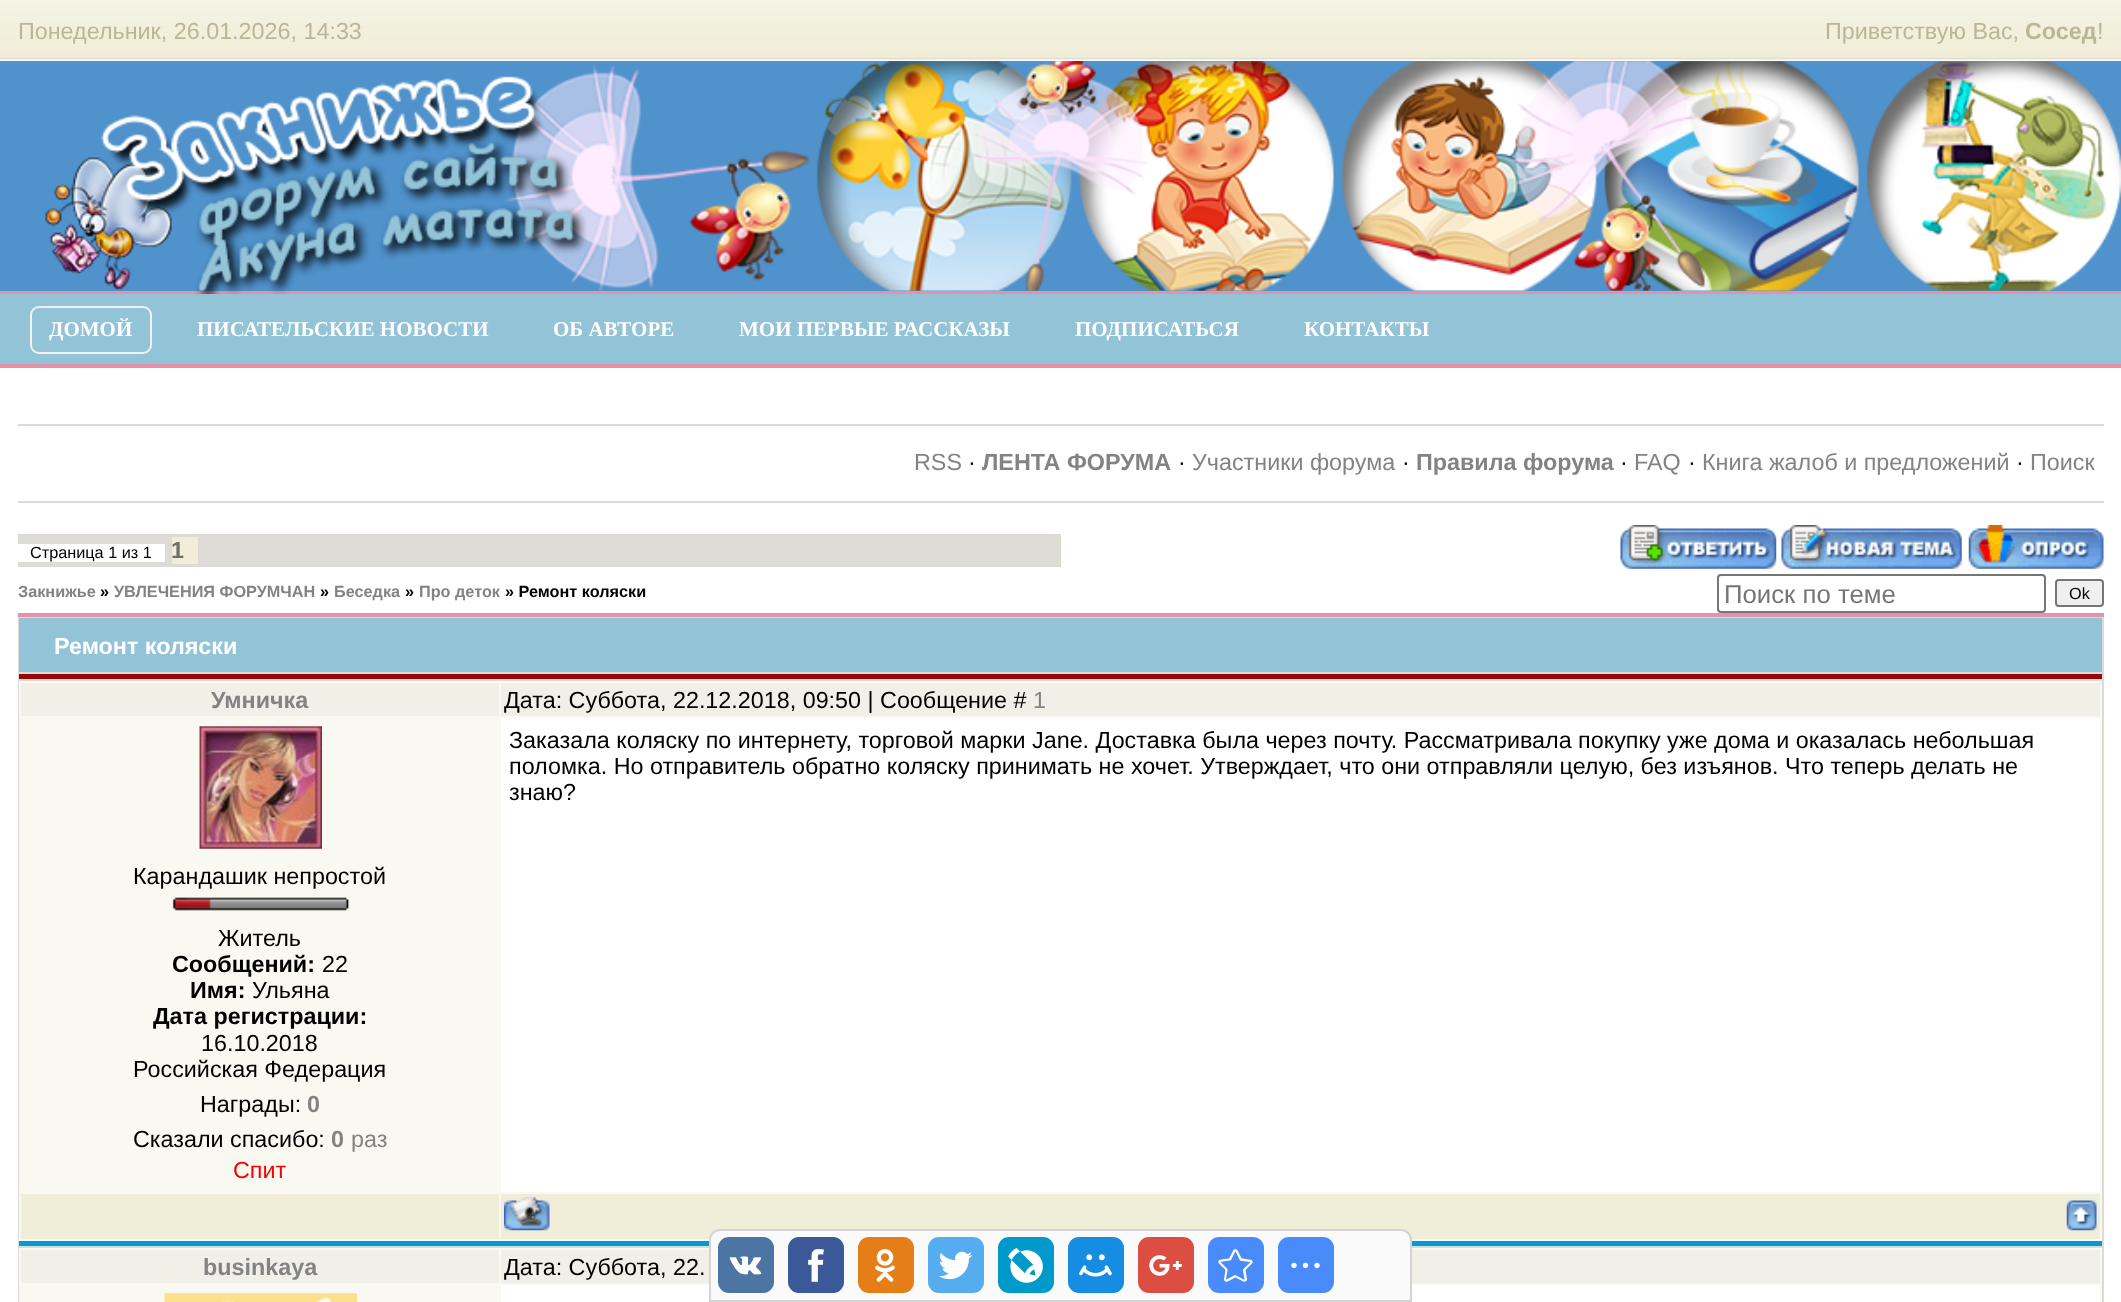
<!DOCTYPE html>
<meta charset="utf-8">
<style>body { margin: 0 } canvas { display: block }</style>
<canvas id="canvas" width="2121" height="1302"></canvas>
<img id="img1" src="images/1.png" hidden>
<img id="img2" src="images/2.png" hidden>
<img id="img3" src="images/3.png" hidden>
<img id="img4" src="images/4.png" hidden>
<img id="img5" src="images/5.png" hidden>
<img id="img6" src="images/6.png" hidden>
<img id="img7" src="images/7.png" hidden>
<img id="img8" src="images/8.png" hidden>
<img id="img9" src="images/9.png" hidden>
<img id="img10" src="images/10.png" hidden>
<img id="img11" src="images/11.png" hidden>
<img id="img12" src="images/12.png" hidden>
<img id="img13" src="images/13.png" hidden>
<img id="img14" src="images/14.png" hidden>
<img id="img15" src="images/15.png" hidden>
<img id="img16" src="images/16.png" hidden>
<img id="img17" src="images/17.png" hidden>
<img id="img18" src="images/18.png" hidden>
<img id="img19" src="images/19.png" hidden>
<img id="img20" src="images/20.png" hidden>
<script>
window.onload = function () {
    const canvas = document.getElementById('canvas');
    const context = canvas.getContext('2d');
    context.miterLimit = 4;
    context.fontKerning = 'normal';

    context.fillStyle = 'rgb(255, 255, 255)';
    context.fillRect(0, 0, 2121, 1302);
    context.drawImage(document.getElementById('img1'), 0, 0, 2121, 61);
    context.fillStyle = 'rgb(80, 146, 204)';
    context.fillRect(0, 61, 2121, 230);
    context.drawImage(document.getElementById('img2'), 506, 61, 1615, 230);
    context.fillStyle = 'rgb(228, 146, 170)';
    context.fillRect(0, 291, 2121, 3);
    context.drawImage(document.getElementById('img3'), 45, 76, 542, 218);
    context.fillStyle = 'rgb(147, 195, 215)';
    context.fillRect(0, 294, 2121, 70);
    context.beginPath();
    context.roundRect(31, 307, 120, 46, 8);
    context.strokeStyle = 'rgb(241, 241, 241)';
    context.lineWidth = 2;
    context.stroke();
    context.fillStyle = 'rgb(228, 146, 170)';
    context.fillRect(0, 364, 2121, 4);
    context.fillStyle = 'rgb(220, 219, 212)';
    context.fillRect(18, 424, 2086, 2);
    context.fillRect(18, 501, 2086, 2);
    context.fillRect(18, 534, 1043, 33);
    context.fillStyle = 'rgb(255, 255, 255)';
    context.fillRect(18, 544, 147, 18);
    context.fillStyle = 'rgb(240, 238, 216)';
    context.fillRect(172, 537, 26, 27);
    context.drawImage(document.getElementById('img4'), 1620, 525, 157, 44);
    context.drawImage(document.getElementById('img5'), 1781, 525, 181, 44);
    context.drawImage(document.getElementById('img6'), 1968, 525, 136, 44);
    context.beginPath();
    context.roundRect(1718, 575, 327, 37, 3);
    context.strokeStyle = 'rgb(118, 118, 118)';
    context.stroke();
    context.fillStyle = 'rgb(239, 239, 239)';
    context.beginPath();
    context.roundRect(2056, 580, 47, 26, 3);
    context.fill();
    context.stroke();
    context.fillStyle = 'rgb(220, 219, 212)';
    context.fillRect(18, 617, 2086, 685);
    context.fillStyle = 'rgb(228, 146, 170)';
    context.fillRect(18, 613, 2086, 4);
    context.fillStyle = 'rgb(147, 195, 215)';
    context.fillRect(19, 618, 2083, 54);
    context.fillStyle = 'rgb(147, 7, 10)';
    context.fillRect(19, 674, 2083, 5);
    context.fillStyle = 'rgb(250, 249, 241)';
    context.fillRect(19, 681, 2083, 560);
    context.fillStyle = 'rgb(0, 156, 218)';
    context.fillRect(19, 1241, 2083, 5);
    context.fillStyle = 'rgb(241, 240, 232)';
    context.fillRect(21, 683, 478, 33);
    context.fillRect(501, 683, 1599, 33);
    context.fillStyle = 'rgb(255, 255, 255)';
    context.fillRect(501, 718, 1599, 474);
    context.drawImage(document.getElementById('img7'), 199, 726, 123, 123);
    context.drawImage(document.getElementById('img8'), 172, 897, 177, 14);
    context.fillStyle = 'rgb(240, 238, 216)';
    context.fillRect(21, 1194, 478, 45);
    context.fillRect(501, 1194, 1599, 45);
    context.drawImage(document.getElementById('img9'), 504, 1197, 46, 34);
    context.drawImage(document.getElementById('img10'), 2066, 1200, 31, 31);
    context.fillStyle = 'rgb(250, 249, 241)';
    context.fillRect(19, 1248, 2083, 54);
    context.fillStyle = 'rgb(241, 240, 232)';
    context.fillRect(21, 1250, 478, 33);
    context.fillRect(501, 1250, 1599, 33);
    context.drawImage(document.getElementById('img11'), 164, 1293, 193, 9);
    context.fillStyle = 'rgb(255, 255, 255)';
    context.fillRect(501, 1285, 1599, 17);
    context.fillStyle = 'rgb(250, 250, 250)';
    context.beginPath();
    context.roundRect(710, 1230, 701, 71, [10, 10, 0, 0]);
    context.fill();
    context.strokeStyle = 'rgb(212, 212, 212)';
    context.stroke();
    context.fillStyle = 'rgb(77, 117, 163)';
    context.beginPath();
    context.roundRect(718, 1237, 56, 56, 11);
    context.fill();
    context.drawImage(document.getElementById('img12'), 729, 1256, 33, 19);
    context.fillStyle = 'rgb(59, 89, 152)';
    context.beginPath();
    context.roundRect(788, 1237, 56, 56, 11);
    context.fill();
    context.drawImage(document.getElementById('img13'), 808, 1249, 16, 33);
    context.fillStyle = 'rgb(230, 126, 23)';
    context.beginPath();
    context.roundRect(858, 1237, 56, 56, 11);
    context.fill();
    context.drawImage(document.getElementById('img14'), 875, 1249, 20, 33);
    context.fillStyle = 'rgb(85, 172, 238)';
    context.beginPath();
    context.roundRect(928, 1237, 56, 56, 11);
    context.fill();
    context.drawImage(document.getElementById('img15'), 938, 1251, 35, 29);
    context.fillStyle = 'rgb(0, 153, 204)';
    context.beginPath();
    context.roundRect(998, 1237, 56, 56, 11);
    context.fill();
    context.drawImage(document.getElementById('img16'), 1008, 1248, 35, 35);
    context.fillStyle = 'rgb(22, 141, 226)';
    context.beginPath();
    context.roundRect(1068, 1237, 56, 56, 11);
    context.fill();
    context.drawImage(document.getElementById('img17'), 1079, 1254, 33, 23);
    context.fillStyle = 'rgb(220, 78, 65)';
    context.beginPath();
    context.roundRect(1138, 1237, 56, 56, 11);
    context.fill();
    context.drawImage(document.getElementById('img18'), 1149, 1255, 33, 21);
    context.fillStyle = 'rgb(73, 139, 250)';
    context.beginPath();
    context.roundRect(1208, 1237, 56, 56, 11);
    context.fill();
    context.drawImage(document.getElementById('img19'), 1218, 1249, 35, 33);
    context.beginPath();
    context.roundRect(1278, 1237, 56, 56, 11);
    context.fill();
    context.drawImage(document.getElementById('img20'), 1291, 1262, 29, 7);
    context.font = '23.33px Liberation Sans';
    context.fillStyle = 'rgb(187, 182, 150)';
    context.fillText('Понедельник, 26.01.2026, 14:33', 18, 39);
    context.fillText('Приветствую Вас,', 1825, 39);
    context.font = 'bold 23.33px Liberation Sans';
    context.fillText('Сосед', 2025, 39);
    context.font = '23.33px Liberation Sans';
    context.fillText('!', 2097, 39);
    context.font = 'bold 21px Liberation Serif';
    context.fillStyle = 'rgb(255, 255, 255)';
    context.fillText('ДОМОЙ', 49, 336);
    context.fillText('ПИСАТЕЛЬСКИЕ НОВОСТИ', 197, 336);
    context.fillText('ОБ АВТОРЕ', 553, 336);
    context.fillText('МОИ ПЕРВЫЕ РАССКАЗЫ', 739, 336);
    context.fillText('ПОДПИСАТЬСЯ', 1075, 336);
    context.fillText('КОНТАКТЫ', 1304, 336);
    context.font = '23.33px Liberation Sans';
    context.fillStyle = 'rgb(131, 131, 131)';
    context.fillText('RSS', 914, 470);
    context.fillStyle = 'rgb(0, 0, 0)';
    context.fillText('·', 968, 470);
    context.font = 'bold 23.33px Liberation Sans';
    context.fillStyle = 'rgb(131, 131, 131)';
    context.fillText('ЛЕНТА ФОРУМА', 982, 470);
    context.font = '23.33px Liberation Sans';
    context.fillStyle = 'rgb(0, 0, 0)';
    context.fillText('·', 1178, 470);
    context.fillStyle = 'rgb(131, 131, 131)';
    context.fillText('Участники форума', 1192, 470);
    context.fillStyle = 'rgb(0, 0, 0)';
    context.fillText('·', 1402, 470);
    context.font = 'bold 23.33px Liberation Sans';
    context.fillStyle = 'rgb(131, 131, 131)';
    context.fillText('Правила форума', 1416, 470);
    context.font = '23.33px Liberation Sans';
    context.fillStyle = 'rgb(0, 0, 0)';
    context.fillText('·', 1620, 470);
    context.fillStyle = 'rgb(131, 131, 131)';
    context.fillText('FAQ', 1634, 470);
    context.fillStyle = 'rgb(0, 0, 0)';
    context.fillText('·', 1688, 470);
    context.fillStyle = 'rgb(131, 131, 131)';
    context.fillText('Книга жалоб и предложений', 1702, 470);
    context.fillStyle = 'rgb(0, 0, 0)';
    context.fillText('·', 2016, 470);
    context.fillStyle = 'rgb(131, 131, 131)';
    context.fillText('Поиск', 2030, 470);
    context.font = '16.25px Liberation Sans';
    context.fillStyle = 'rgb(0, 0, 0)';
    context.fillText('Страница 1 из 1', 30, 558);
    context.font = 'bold 23.33px Liberation Sans';
    context.fillStyle = 'rgb(110, 110, 110)';
    context.fillText('1', 171, 558);
    context.font = 'bold 16.25px Liberation Sans';
    context.fillStyle = 'rgb(131, 131, 131)';
    context.fillText('Закнижье', 18, 597);
    context.fillStyle = 'rgb(0, 0, 0)';
    context.fillText('»', 100, 597);
    context.fillStyle = 'rgb(131, 131, 131)';
    context.fillText('УВЛЕЧЕНИЯ ФОРУМЧАН', 114, 597);
    context.fillStyle = 'rgb(0, 0, 0)';
    context.fillText('»', 320, 597);
    context.fillStyle = 'rgb(131, 131, 131)';
    context.fillText('Беседка', 334, 597);
    context.fillStyle = 'rgb(0, 0, 0)';
    context.fillText('»', 405, 597);
    context.fillStyle = 'rgb(131, 131, 131)';
    context.fillText('Про деток', 419, 597);
    context.fillStyle = 'rgb(0, 0, 0)';
    context.fillText('» Ремонт коляски', 505, 597);
    context.font = '25.75px Liberation Sans';
    context.fillStyle = 'rgb(117, 117, 117)';
    context.fillText('Поиск по теме', 1724, 603);
    context.font = '16.25px Liberation Sans';
    context.fillStyle = 'rgb(0, 0, 0)';
    context.fillText('Ok', 2069, 599);
    context.font = 'bold 23.33px Liberation Sans';
    context.fillStyle = 'rgb(255, 255, 255)';
    context.fillText('Ремонт коляски', 54, 654);
    context.fillStyle = 'rgb(131, 131, 131)';
    context.fillText('Умничка', 211, 708);
    context.font = '23.33px Liberation Sans';
    context.fillStyle = 'rgb(0, 0, 0)';
    context.fillText('Дата: Суббота, 22.12.2018, 09:50 | Сообщение #', 504, 708);
    context.fillStyle = 'rgb(131, 131, 131)';
    context.fillText('1', 1033, 708);
    context.fillStyle = 'rgb(0, 0, 0)';
    context.fillText('Заказала коляску по интернету, торговой марки Jane. Доставка была через почту. Рассматривала покупку уже дома и оказалась небольшая', 509, 748);
    context.fillText('поломка. Но отправитель обратно коляску принимать не хочет. Утверждает, что они отправляли целую, без изъянов. Что теперь делать не', 509, 774);
    context.fillText('знаю?', 509, 800);
    context.fillText('Карандашик непростой', 133, 884);
    context.fillText('Житель', 218, 946);
    context.font = 'bold 23.33px Liberation Sans';
    context.fillText('Сообщений:', 172, 972);
    context.font = '23.33px Liberation Sans';
    context.fillText('22', 322, 972);
    context.font = 'bold 23.33px Liberation Sans';
    context.fillText('Имя:', 190, 998);
    context.font = '23.33px Liberation Sans';
    context.fillText('Ульяна', 252, 998);
    context.font = 'bold 23.33px Liberation Sans';
    context.fillText('Дата регистрации:', 153, 1024);
    context.font = '23.33px Liberation Sans';
    context.fillText('16.10.2018', 201, 1051);
    context.fillText('Российская Федерация', 133, 1077);
    context.fillText('Награды:', 200, 1112);
    context.font = 'bold 23.33px Liberation Sans';
    context.fillStyle = 'rgb(131, 131, 131)';
    context.fillText('0', 307, 1112);
    context.font = '23.33px Liberation Sans';
    context.fillStyle = 'rgb(0, 0, 0)';
    context.fillText('Сказали спасибо:', 133, 1147);
    context.font = 'bold 23.33px Liberation Sans';
    context.fillStyle = 'rgb(131, 131, 131)';
    context.fillText('0', 331, 1147);
    context.font = '23.33px Liberation Sans';
    context.fillText('раз', 351, 1147);
    context.fillStyle = 'rgb(255, 0, 0)';
    context.fillText('Спит', 233, 1178);
    context.font = 'bold 23.33px Liberation Sans';
    context.fillStyle = 'rgb(131, 131, 131)';
    context.fillText('businkaya', 203, 1275);
    context.font = '23.33px Liberation Sans';
    context.fillStyle = 'rgb(0, 0, 0)';
    context.fillText('Дата: Суббота, 22.', 504, 1275);
};
</script>
